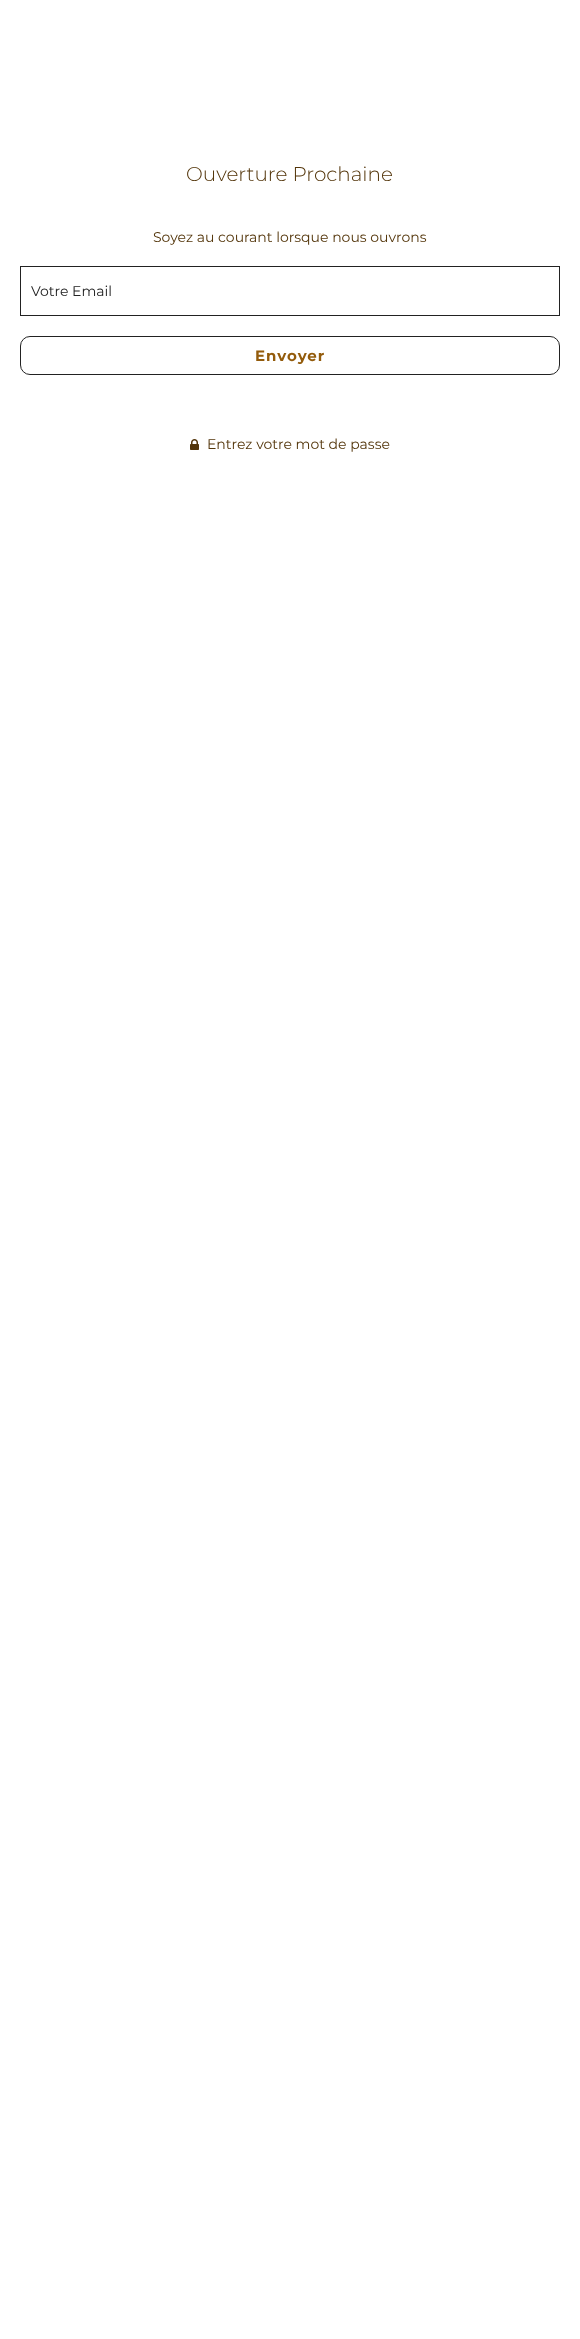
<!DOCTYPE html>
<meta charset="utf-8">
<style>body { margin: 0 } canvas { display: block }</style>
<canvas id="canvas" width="580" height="2339"></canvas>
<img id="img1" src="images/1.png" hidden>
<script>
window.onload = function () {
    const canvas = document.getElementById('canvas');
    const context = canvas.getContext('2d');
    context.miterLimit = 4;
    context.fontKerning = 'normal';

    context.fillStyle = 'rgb(255, 255, 255)';
    context.fillRect(0, 0, 580, 2339);
    context.strokeStyle = 'rgb(34, 34, 34)';
    context.strokeRect(20.5, 266.5, 539, 49);
    context.beginPath();
    context.roundRect(20.5, 336.5, 539, 38, 9.5);
    context.stroke();
    context.drawImage(document.getElementById('img1'), 190, 439, 9, 11);
    context.font = '300 20px Montserrat';
    context.fillStyle = 'rgb(83, 53, 10)';
    context.fillText('Ouverture Prochaine', 186, 181);
    context.font = '14px Montserrat';
    context.fillText('Soyez au courant lorsque nous ouvrons', 153, 242);
    context.fillStyle = 'rgb(34, 34, 34)';
    context.fillText('Votre Email', 31, 296);
    context.letterSpacing = '1px';
    context.font = 'bold 15px Montserrat';
    context.fillStyle = 'rgb(147, 91, 11)';
    context.fillText('Envoyer', 255, 361);
    context.letterSpacing = '0px';
    context.font = '14px Montserrat';
    context.fillStyle = 'rgb(83, 53, 10)';
    context.fillText('Entrez votre mot de passe', 207, 449);
};
</script>
